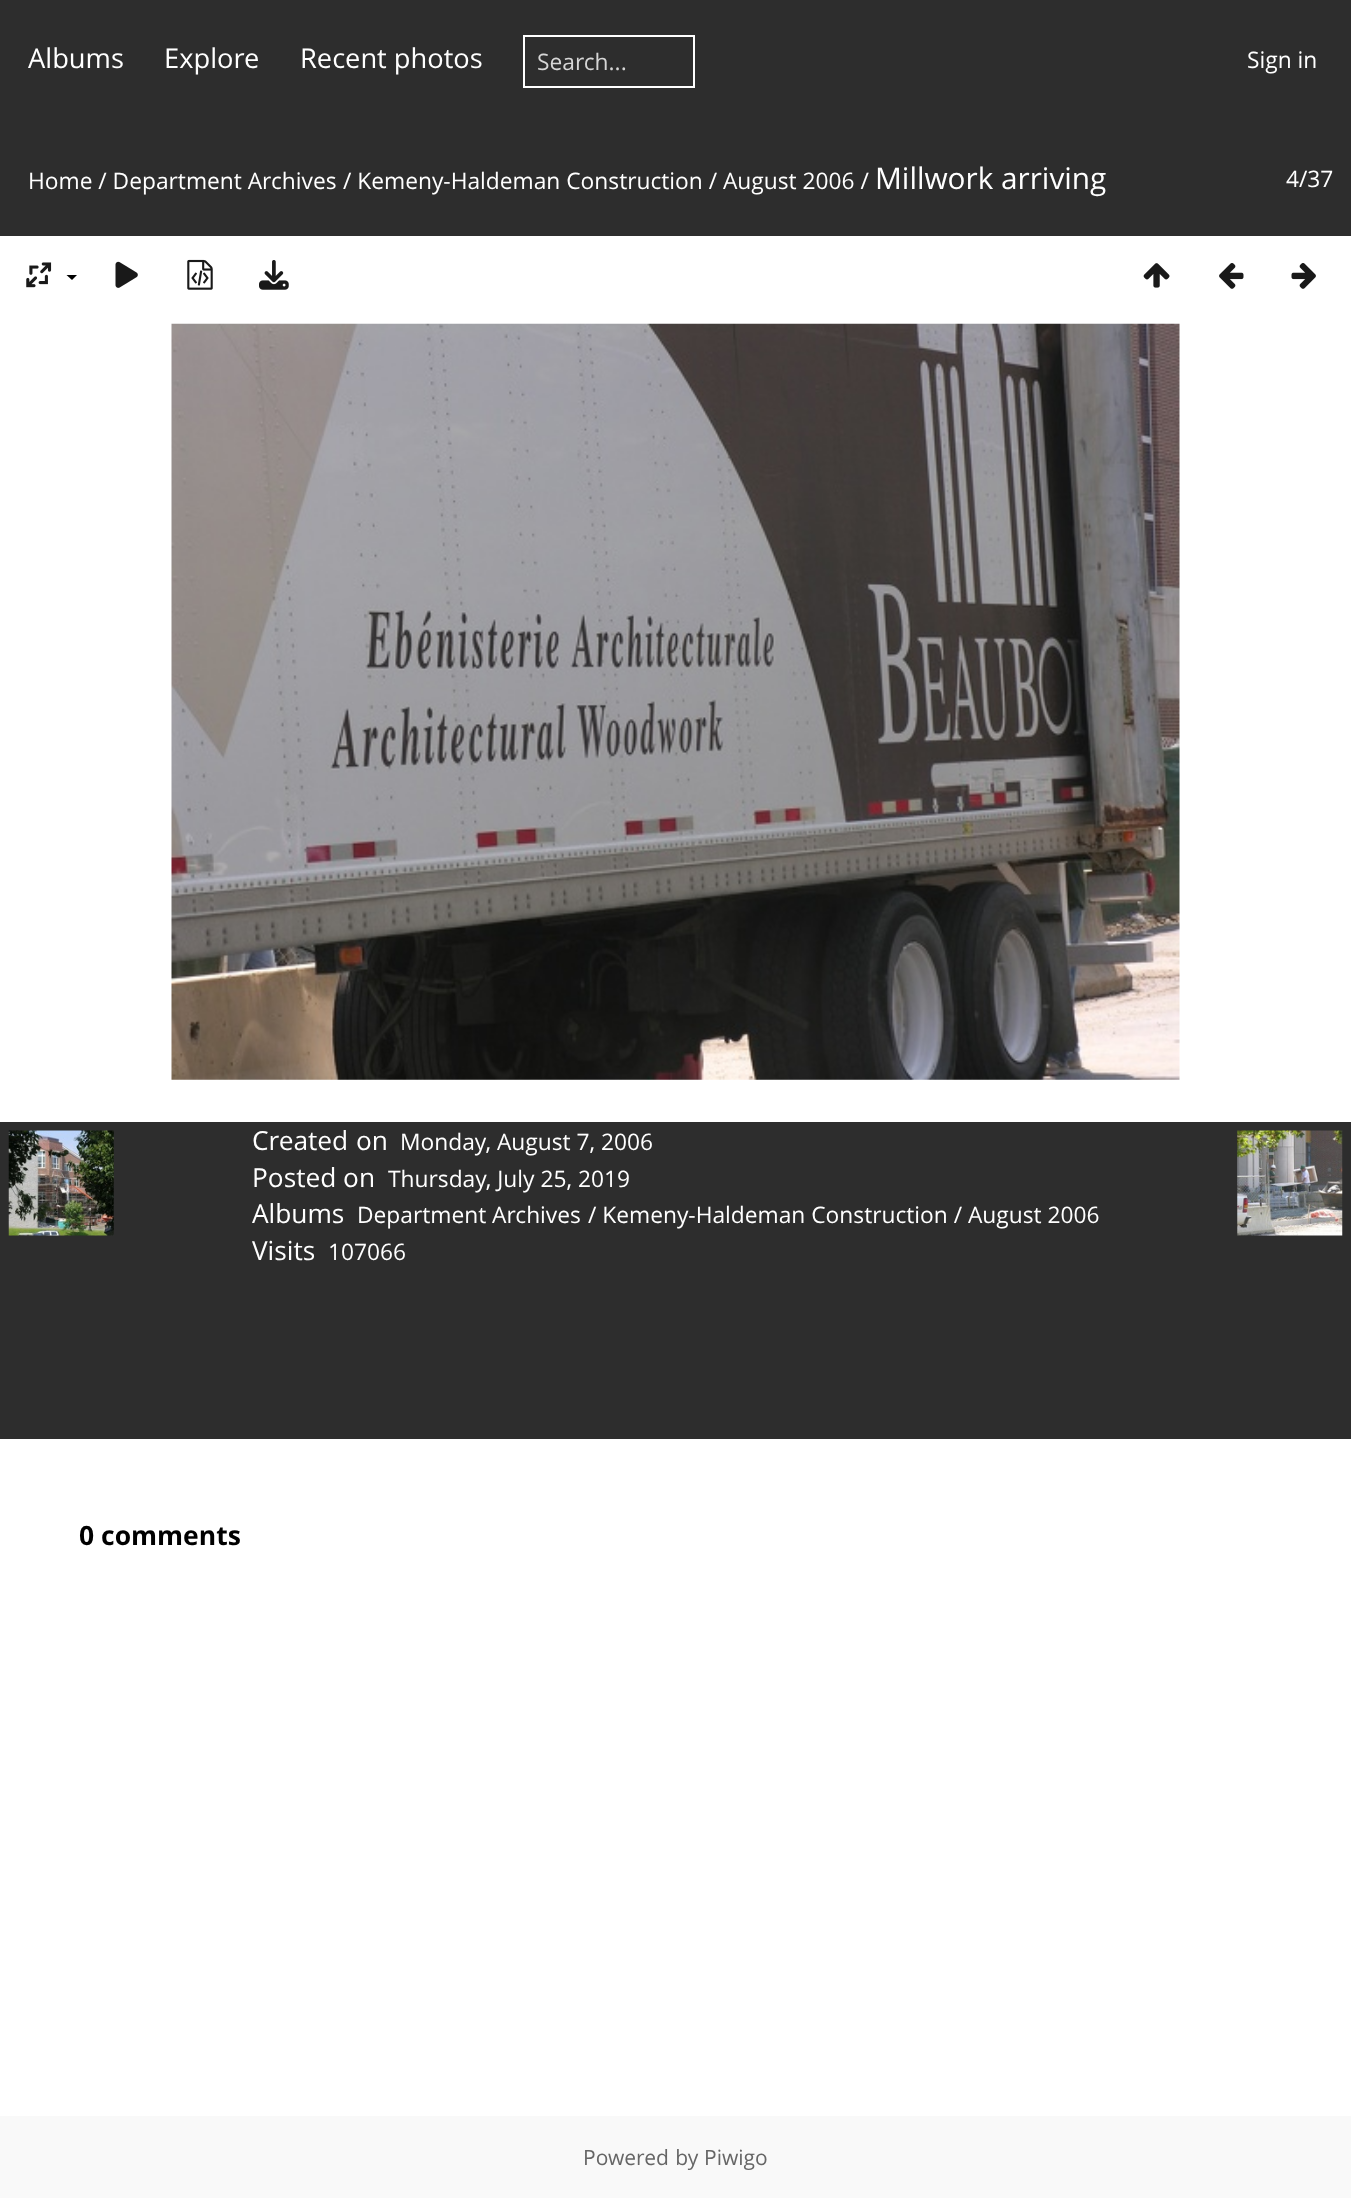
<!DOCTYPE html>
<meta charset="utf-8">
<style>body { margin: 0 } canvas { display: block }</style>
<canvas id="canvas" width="1351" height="2198"></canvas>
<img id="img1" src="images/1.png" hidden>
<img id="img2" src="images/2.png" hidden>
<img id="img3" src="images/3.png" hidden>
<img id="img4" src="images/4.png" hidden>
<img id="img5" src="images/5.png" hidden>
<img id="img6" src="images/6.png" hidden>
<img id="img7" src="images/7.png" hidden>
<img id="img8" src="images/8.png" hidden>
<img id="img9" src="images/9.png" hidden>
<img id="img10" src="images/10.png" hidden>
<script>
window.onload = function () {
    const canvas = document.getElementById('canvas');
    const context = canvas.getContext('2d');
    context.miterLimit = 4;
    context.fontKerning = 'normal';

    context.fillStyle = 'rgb(255, 255, 255)';
    context.fillRect(0, 0, 1351, 2198);
    context.fillStyle = 'rgb(45, 45, 45)';
    context.fillRect(0, 0, 1351, 236);
    context.strokeStyle = 'rgb(255, 255, 255)';
    context.lineWidth = 2;
    context.strokeRect(524, 36, 170, 51);
    context.drawImage(document.getElementById('img1'), 26, 262, 26, 26);
    context.fillStyle = 'rgb(0, 0, 0)';
    context.beginPath();
    context.moveTo(66.5, 275);
    context.lineTo(77, 275);
    context.lineTo(72, 280);
    context.closePath();
    context.fill();
    context.drawImage(document.getElementById('img2'), 115, 261, 23, 27);
    context.drawImage(document.getElementById('img3'), 187, 259, 26, 31);
    context.drawImage(document.getElementById('img4'), 259, 260, 30, 30);
    context.drawImage(document.getElementById('img5'), 1143, 263, 27, 25);
    context.drawImage(document.getElementById('img6'), 1219, 263, 25, 26);
    context.drawImage(document.getElementById('img7'), 1291, 263, 25, 26);
    context.drawImage(document.getElementById('img8'), 171, 323, 1009, 757);
    context.fillStyle = 'rgb(45, 45, 45)';
    context.fillRect(0, 1122, 1351, 317);
    context.drawImage(document.getElementById('img9'), 8, 1130, 106, 106);
    context.drawImage(document.getElementById('img10'), 1237, 1130, 106, 106);
    context.fillStyle = 'rgb(249, 249, 249)';
    context.fillRect(0, 2116, 1351, 82);
    context.font = '27.25px Open Sans';
    context.fillStyle = 'rgb(255, 255, 255)';
    context.fillText('Albums', 28, 68);
    context.fillText('Explore', 164, 68);
    context.fillText('Recent photos', 300, 68);
    context.font = '22.75px Open Sans';
    context.fillStyle = 'rgb(214, 214, 214)';
    context.fillText('Search...', 537, 70);
    context.fillStyle = 'rgb(255, 255, 255)';
    context.fillText('Sign in', 1247, 68);
    context.fillText('Home / Department Archives', 28, 189);
    context.fillText('/ Kemeny-Haldeman Construction / August 2006 /', 343, 189);
    context.font = '29.75px Open Sans';
    context.fillText('Millwork arriving', 875, 189);
    context.font = '22.75px Open Sans';
    context.fillText('4/37', 1286, 187);
    context.wordSpacing = '1px';
    context.font = '26.25px Open Sans';
    context.fillText('Created on', 252, 1150);
    context.wordSpacing = '0px';
    context.font = '22.75px Open Sans';
    context.fillText('Monday, August 7, 2006', 400, 1150);
    context.font = '26.25px Open Sans';
    context.fillText('Posted on', 252, 1187);
    context.font = '22.75px Open Sans';
    context.fillText('Thursday, July 25, 2019', 388, 1187);
    context.font = '26.25px Open Sans';
    context.fillText('Albums', 252, 1223);
    context.font = '22.75px Open Sans';
    context.fillText('Department Archives', 357, 1223);
    context.fillText('/ Kemeny-Haldeman Construction / August 2006', 588, 1223);
    context.font = '26.25px Open Sans';
    context.fillText('Visits', 252, 1260);
    context.font = '22.75px Open Sans';
    context.fillText('107066', 328, 1260);
    context.font = 'bold 26.5px Open Sans';
    context.fillStyle = 'rgb(0, 0, 0)';
    context.fillText('0 comments', 79, 1545);
    context.wordSpacing = '1px';
    context.font = '21px Open Sans';
    context.fillStyle = 'rgb(102, 102, 102)';
    context.fillText('Powered by', 583, 2165);
    context.wordSpacing = '0px';
    context.fillText('Piwigo', 704, 2165);
};
</script>
